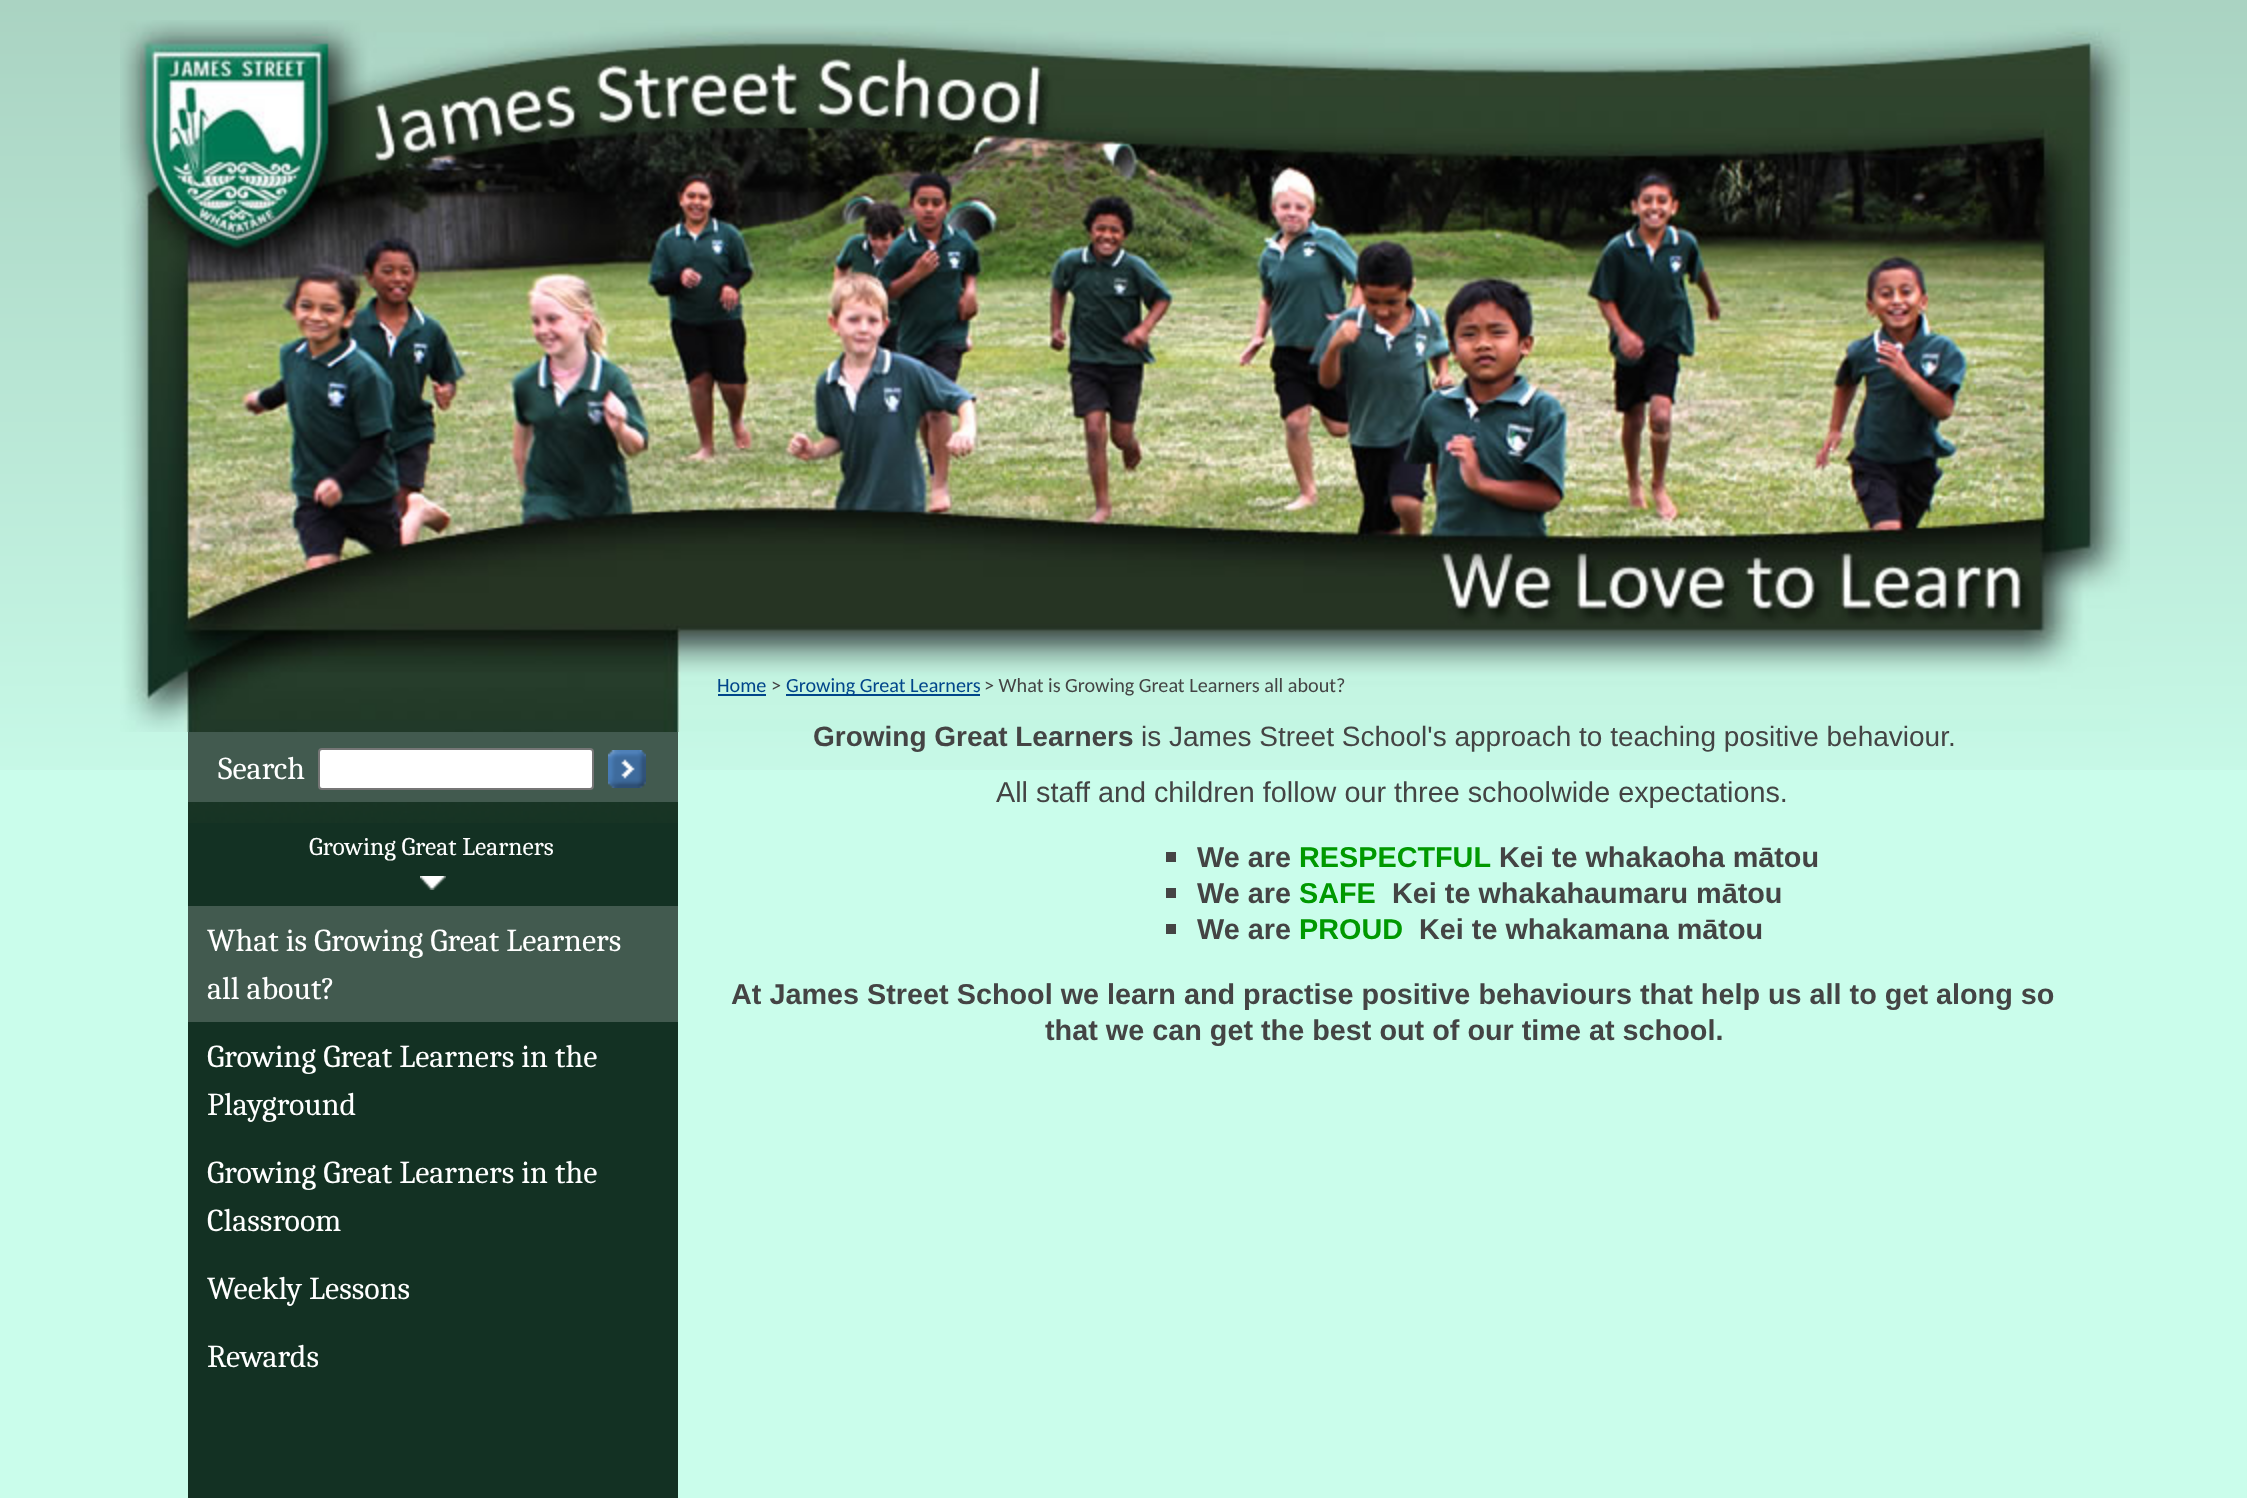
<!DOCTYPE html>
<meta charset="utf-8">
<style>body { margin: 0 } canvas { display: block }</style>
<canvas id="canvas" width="2247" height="1498"></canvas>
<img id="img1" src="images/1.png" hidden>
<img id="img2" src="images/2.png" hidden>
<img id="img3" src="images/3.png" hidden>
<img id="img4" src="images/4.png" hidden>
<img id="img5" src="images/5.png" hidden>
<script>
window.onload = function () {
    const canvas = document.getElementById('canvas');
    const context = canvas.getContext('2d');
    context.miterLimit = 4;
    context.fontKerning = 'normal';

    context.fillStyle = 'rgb(202, 253, 235)';
    context.fillRect(0, 0, 2247, 1498);
    context.drawImage(document.getElementById('img1'), 0, 0, 2247, 770);
    context.drawImage(document.getElementById('img2'), 120, 20, 2010, 712);
    context.fillStyle = 'rgb(19, 49, 35)';
    context.fillRect(188, 823, 490, 675);
    context.drawImage(document.getElementById('img3'), 188, 802, 490, 21);
    context.fillStyle = 'rgb(66, 90, 79)';
    context.fillRect(188, 732, 490, 70);
    context.fillStyle = 'rgb(255, 255, 255)';
    context.beginPath();
    context.roundRect(319, 749, 274, 40, 3);
    context.fill();
    context.strokeStyle = 'rgb(118, 118, 118)';
    context.lineWidth = 2;
    context.stroke();
    context.drawImage(document.getElementById('img4'), 608, 750, 38, 38);
    context.drawImage(document.getElementById('img5'), 420, 876, 26, 14);
    context.fillStyle = 'rgb(66, 90, 79)';
    context.fillRect(188, 906, 490, 116);
    context.fillStyle = 'rgb(0, 69, 138)';
    context.fillRect(718, 694, 48, 2);
    context.fillRect(786, 694, 194, 2);
    context.fillStyle = 'rgb(68, 68, 68)';
    context.fillRect(1166, 852, 10, 10);
    context.fillRect(1166, 888, 10, 10);
    context.fillRect(1166, 924, 10, 10);
    context.font = '32px Caladea';
    context.fillStyle = 'rgb(255, 255, 255)';
    context.fillText('Search', 218, 779);
    context.font = '25.5px Caladea';
    context.fillText('Growing Great Learners', 309, 855);
    context.font = '32px Caladea';
    context.fillText('What is Growing Great Learners', 207, 951);
    context.fillText('all about?', 207, 999);
    context.fillText('Growing Great Learners in the', 207, 1067);
    context.fillText('Playground', 207, 1115);
    context.fillText('Growing Great Learners in the', 207, 1183);
    context.fillText('Classroom', 207, 1231);
    context.fillText('Weekly Lessons', 207, 1299);
    context.fillText('Rewards', 207, 1367);
    context.font = '20.2px Carlito';
    context.fillStyle = 'rgb(0, 69, 138)';
    context.fillText('Home', 717, 692);
    context.fillStyle = 'rgb(68, 68, 68)';
    context.fillText('>', 771, 692);
    context.fillStyle = 'rgb(0, 69, 138)';
    context.fillText('Growing Great Learners', 786, 692);
    context.fillStyle = 'rgb(68, 68, 68)';
    context.fillText('> What is Growing Great Learners all about?', 984, 692);
    context.font = 'bold 28px Liberation Sans';
    context.fillText('Growing Great Learners', 813, 746);
    context.font = '28px Liberation Sans';
    context.fillText('is James Street School\'s approach to teaching positive behaviour.', 1141, 746);
    context.font = '28.8px Liberation Sans';
    context.fillText('All staff and children follow our three schoolwide expectations.', 996, 802);
    context.font = 'bold 28.8px Liberation Sans';
    context.fillText('We are', 1197, 867);
    context.fillStyle = 'rgb(0, 153, 0)';
    context.fillText('RESPECTFUL', 1299, 867);
    context.fillStyle = 'rgb(68, 68, 68)';
    context.fillText('Kei te whakaoha mātou', 1499, 867);
    context.fillText('We are', 1197, 903);
    context.fillStyle = 'rgb(0, 153, 0)';
    context.fillText('SAFE', 1299, 903);
    context.fillStyle = 'rgb(68, 68, 68)';
    context.fillText('Kei te whakahaumaru mātou', 1392, 903);
    context.fillText('We are', 1197, 939);
    context.fillStyle = 'rgb(0, 153, 0)';
    context.fillText('PROUD', 1299, 939);
    context.fillStyle = 'rgb(68, 68, 68)';
    context.fillText('Kei te whakamana mātou', 1419, 939);
    context.fillText('At James Street School we learn and practise positive behaviours that help us all to get along so', 731, 1004);
    context.fillText('that we can get the best out of our time at school.', 1045, 1040);
};
</script>
